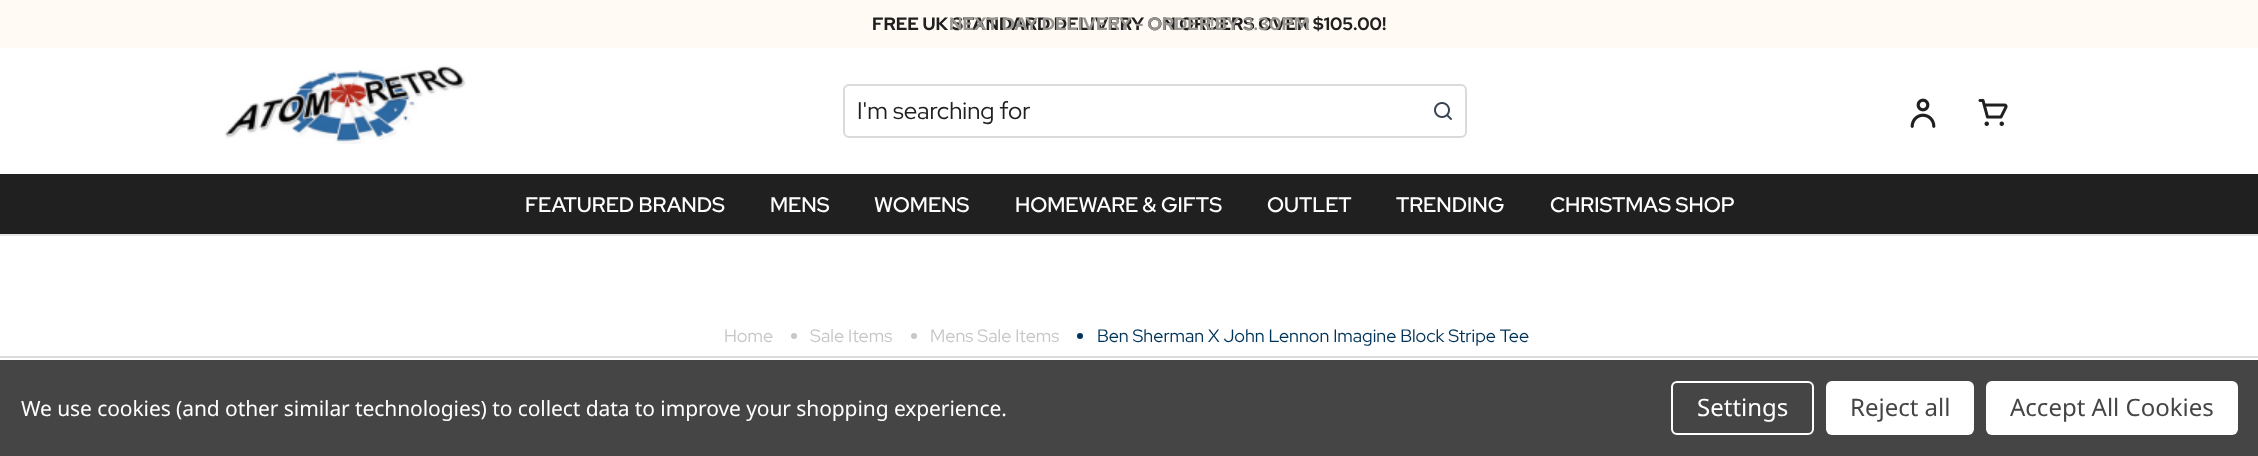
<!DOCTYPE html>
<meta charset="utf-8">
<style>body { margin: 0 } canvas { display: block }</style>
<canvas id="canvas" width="2258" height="456"></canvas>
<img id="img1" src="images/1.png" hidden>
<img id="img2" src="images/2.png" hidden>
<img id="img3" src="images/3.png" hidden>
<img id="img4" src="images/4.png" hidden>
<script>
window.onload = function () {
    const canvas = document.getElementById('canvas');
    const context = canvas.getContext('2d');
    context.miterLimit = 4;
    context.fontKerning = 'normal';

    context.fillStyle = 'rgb(255, 255, 255)';
    context.fillRect(0, 0, 2258, 456);
    context.fillStyle = 'rgb(255, 250, 244)';
    context.fillRect(0, 0, 2258, 48);
    context.drawImage(document.getElementById('img1'), 224, 65, 242, 79);
    context.beginPath();
    context.roundRect(844, 85, 622, 52, 5);
    context.strokeStyle = 'rgb(219, 218, 218)';
    context.lineWidth = 2;
    context.stroke();
    context.drawImage(document.getElementById('img2'), 1434, 102, 18, 18);
    context.drawImage(document.getElementById('img3'), 1910, 98, 26, 30);
    context.drawImage(document.getElementById('img4'), 1978, 99, 30, 27);
    context.fillStyle = 'rgb(32, 32, 32)';
    context.fillRect(0, 174, 2258, 60);
    context.fillStyle = 'rgb(229, 229, 229)';
    context.fillRect(0, 234, 2258, 2);
    context.fillStyle = 'rgb(219, 218, 218)';
    context.fillRect(0, 356, 2258, 2);
    context.fillStyle = 'rgb(199, 199, 199)';
    context.beginPath();
    context.arc(794, 336, 3, 0, 2 * Math.PI);
    context.fill();
    context.beginPath();
    context.arc(914, 336, 3, 0, 2 * Math.PI);
    context.fill();
    context.fillStyle = 'rgb(0, 52, 89)';
    context.beginPath();
    context.arc(1080, 336, 3, 0, 2 * Math.PI);
    context.fill();
    context.fillStyle = 'rgb(69, 69, 69)';
    context.fillRect(0, 360, 2258, 96);
    context.beginPath();
    context.roundRect(1672, 382, 141, 52, 5);
    context.strokeStyle = 'rgb(255, 255, 255)';
    context.stroke();
    context.fillStyle = 'rgb(255, 255, 255)';
    context.beginPath();
    context.roundRect(1826, 381, 148, 54, 6);
    context.fill();
    context.beginPath();
    context.roundRect(1986, 381, 252, 54, 6);
    context.fill();
    context.font = 'bold 18px Red Hat Display';
    context.fillStyle = 'rgb(32, 32, 32)';
    context.fillText('FREE UK STANDARD DELIVERY ON ORDERS OVER $‌105.00!', 872, 30);
    context.fillStyle = 'rgb(151, 149, 145)';
    context.fillText('NEXT DAY DELIVERY - ORDER BY 3.30PM', 949, 30);
    context.fillStyle = 'rgb(160, 158, 154)';
    context.fillText('!', 1210, 30);
    context.font = '24px Red Hat Display';
    context.fillStyle = 'rgb(32, 32, 32)';
    context.fillText('I\'m searching for', 857, 119);
    context.font = '600 21px Red Hat Display';
    context.fillStyle = 'rgb(255, 255, 255)';
    context.fillText('FEATURED BRANDS', 525, 212);
    context.fillText('MENS', 770, 212);
    context.fillText('WOMENS', 874, 212);
    context.fillText('HOMEWARE & GIFTS', 1015, 212);
    context.fillText('OUTLET', 1267, 212);
    context.fillText('TRENDING', 1396, 212);
    context.fillText('CHRISTMAS SHOP', 1550, 212);
    context.font = '18px Red Hat Display';
    context.fillStyle = 'rgb(199, 199, 199)';
    context.fillText('Home', 724, 342);
    context.fillText('Sale Items', 810, 342);
    context.fillText('Mens Sale Items', 930, 342);
    context.fillStyle = 'rgb(0, 52, 89)';
    context.fillText('Ben Sherman X John Lennon Imagine Block Stripe Tee', 1097, 342);
    context.letterSpacing = '-0.08px';
    context.font = '21px Noto Sans';
    context.fillStyle = 'rgb(255, 255, 255)';
    context.fillText('We use cookies (and other similar technologies) to collect data to improve your shopping experience.', 21, 416);
    context.letterSpacing = '0px';
    context.font = '24px Noto Sans';
    context.fillText('Settings', 1697, 416);
    context.fillStyle = 'rgb(69, 69, 69)';
    context.fillText('Reject all', 1850, 416);
    context.fillText('Accept All Cookies', 2010, 416);
};
</script>
